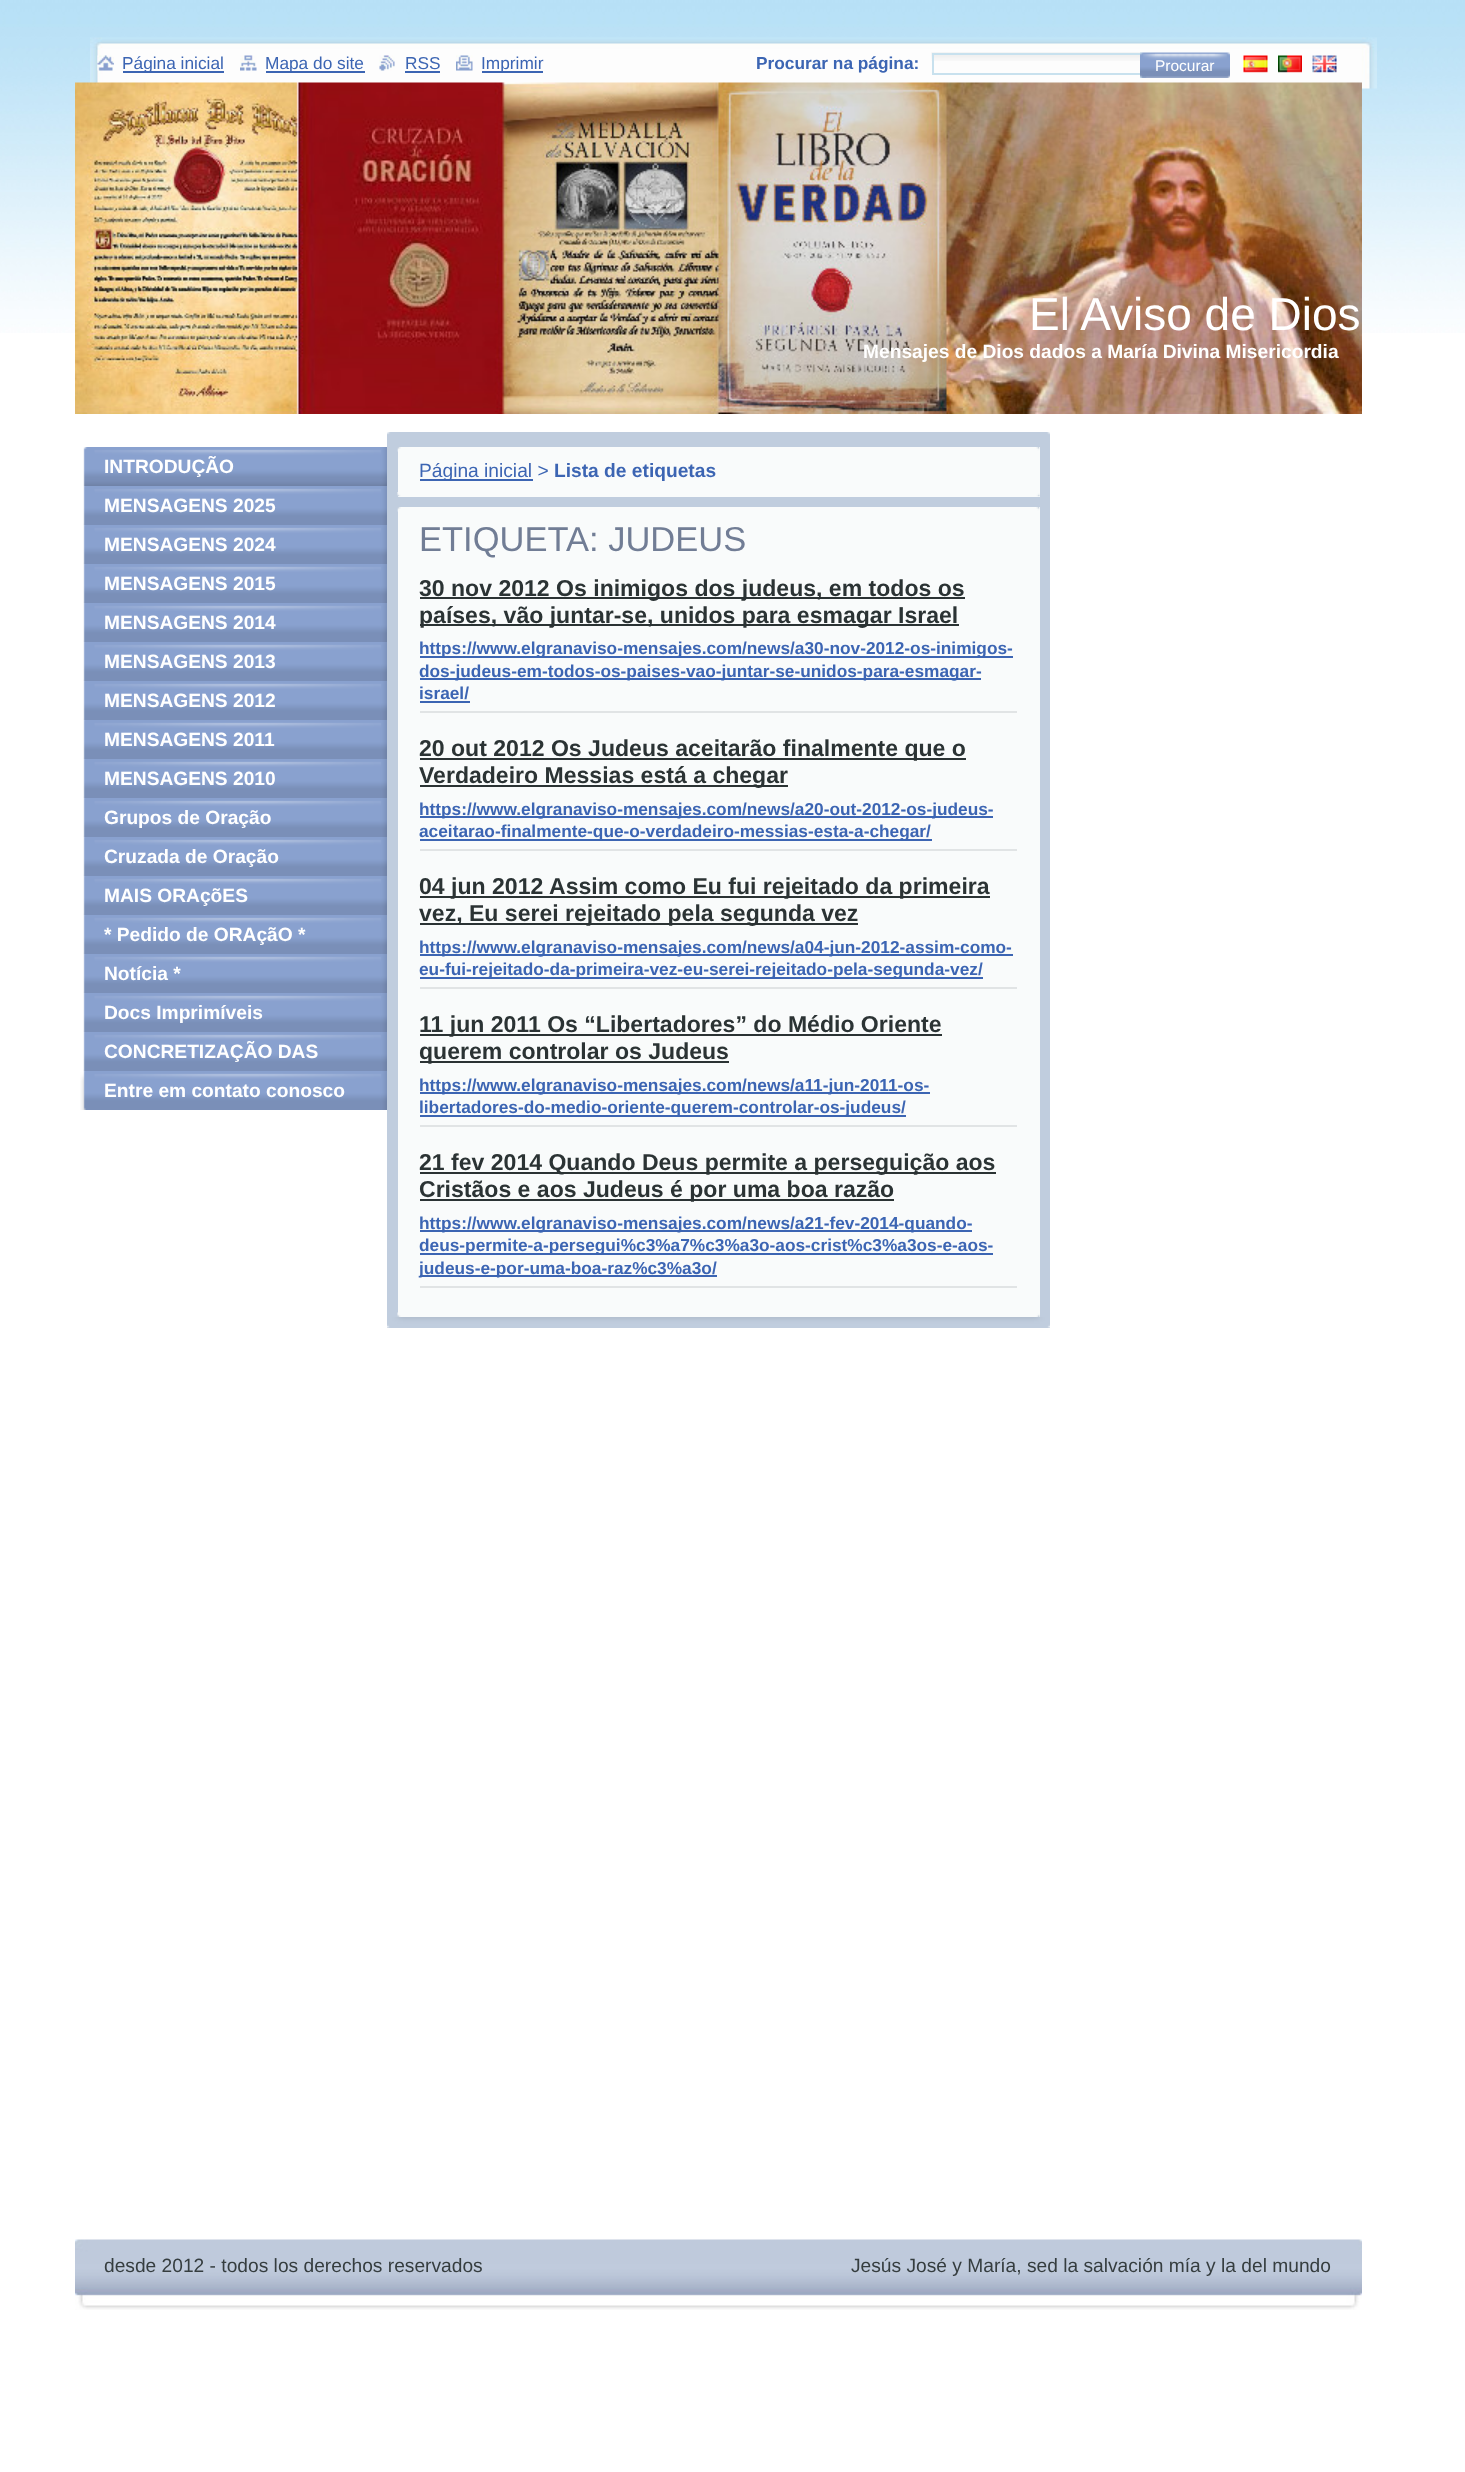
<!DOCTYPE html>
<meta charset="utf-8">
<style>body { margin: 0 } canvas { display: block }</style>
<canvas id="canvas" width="1465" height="2472"></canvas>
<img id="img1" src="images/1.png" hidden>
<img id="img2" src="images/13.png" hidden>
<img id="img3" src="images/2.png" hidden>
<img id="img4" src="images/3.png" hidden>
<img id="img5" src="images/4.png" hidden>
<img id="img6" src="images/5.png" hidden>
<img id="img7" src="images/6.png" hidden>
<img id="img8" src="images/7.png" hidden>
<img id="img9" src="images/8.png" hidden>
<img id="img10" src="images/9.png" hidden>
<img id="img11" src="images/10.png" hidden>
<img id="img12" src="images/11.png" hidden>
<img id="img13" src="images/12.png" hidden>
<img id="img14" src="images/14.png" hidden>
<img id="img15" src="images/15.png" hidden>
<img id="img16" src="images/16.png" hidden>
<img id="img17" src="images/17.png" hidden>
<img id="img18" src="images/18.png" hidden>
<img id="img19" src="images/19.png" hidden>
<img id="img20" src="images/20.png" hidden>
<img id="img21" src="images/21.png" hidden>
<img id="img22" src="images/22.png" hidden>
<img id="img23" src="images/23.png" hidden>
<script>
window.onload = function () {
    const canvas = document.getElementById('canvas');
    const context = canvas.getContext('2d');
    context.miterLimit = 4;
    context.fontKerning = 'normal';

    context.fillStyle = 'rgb(255, 255, 255)';
    context.fillRect(0, 0, 1465, 2472);
    context.drawImage(document.getElementById('img1'), 0, 0, 1465, 333);
    context.drawImage(document.getElementById('img2'), 90, 37, 1287, 52);
    context.drawImage(document.getElementById('img3'), 97, 55, 17, 16);
    context.fillStyle = 'rgb(60, 101, 179)';
    context.fillRect(123, 71, 101, 2);
    context.drawImage(document.getElementById('img4'), 240, 55, 17, 16);
    context.fillRect(266, 71, 99, 2);
    context.drawImage(document.getElementById('img5'), 379, 55, 16, 16);
    context.fillRect(405, 71, 35, 2);
    context.drawImage(document.getElementById('img6'), 456, 55, 17, 16);
    context.fillRect(482, 71, 61, 2);
    context.drawImage(document.getElementById('img7'), 931, 52, 211, 9);
    context.strokeStyle = 'rgb(200, 225, 238)';
    context.lineWidth = 2;
    context.strokeRect(933, 54, 208, 20);
    context.drawImage(document.getElementById('img8'), 1140, 52, 15, 26);
    context.drawImage(document.getElementById('img9'), 1155, 52, 60, 26);
    context.drawImage(document.getElementById('img10'), 1215, 52, 15, 26);
    context.drawImage(document.getElementById('img11'), 1243, 55, 25, 18);
    context.drawImage(document.getElementById('img12'), 1278, 55, 24, 18);
    context.drawImage(document.getElementById('img13'), 1312, 55, 25, 18);
    context.drawImage(document.getElementById('img14'), 75, 82, 1287, 332);
    context.drawImage(document.getElementById('img15'), 83, 447, 304, 39);
    context.drawImage(document.getElementById('img16'), 83, 486, 304, 39);
    context.drawImage(document.getElementById('img16'), 83, 525, 304, 39);
    context.drawImage(document.getElementById('img16'), 83, 564, 304, 39);
    context.drawImage(document.getElementById('img16'), 83, 603, 304, 39);
    context.drawImage(document.getElementById('img16'), 83, 642, 304, 39);
    context.drawImage(document.getElementById('img16'), 83, 681, 304, 39);
    context.drawImage(document.getElementById('img16'), 83, 720, 304, 39);
    context.drawImage(document.getElementById('img16'), 83, 759, 304, 39);
    context.drawImage(document.getElementById('img16'), 83, 798, 304, 39);
    context.drawImage(document.getElementById('img16'), 83, 837, 304, 39);
    context.drawImage(document.getElementById('img16'), 83, 876, 304, 39);
    context.drawImage(document.getElementById('img16'), 83, 915, 304, 39);
    context.drawImage(document.getElementById('img16'), 83, 954, 304, 39);
    context.drawImage(document.getElementById('img16'), 83, 993, 304, 39);
    context.drawImage(document.getElementById('img16'), 83, 1032, 304, 39);
    context.drawImage(document.getElementById('img17'), 80, 1071, 307, 39);
    context.fillStyle = 'rgb(192, 205, 222)';
    context.fillRect(387, 435, 663, 893);
    context.drawImage(document.getElementById('img18'), 387, 1317, 663, 11);
    context.drawImage(document.getElementById('img19'), 387, 432, 663, 3);
    context.fillStyle = 'rgb(249, 251, 251)';
    context.fillRect(398, 447, 642, 50);
    context.drawImage(document.getElementById('img20'), 397, 492, 643, 5);
    context.drawImage(document.getElementById('img21'), 397, 447, 643, 5);
    context.fillStyle = 'rgb(60, 101, 179)';
    context.fillRect(420, 479, 113, 2);
    context.fillStyle = 'rgb(249, 251, 251)';
    context.fillRect(398, 507, 642, 810);
    context.drawImage(document.getElementById('img22'), 397, 1312, 643, 5);
    context.drawImage(document.getElementById('img21'), 397, 507, 643, 5);
    context.fillStyle = 'rgb(225, 228, 229)';
    context.fillRect(420, 711, 597, 2);
    context.fillStyle = 'rgb(43, 51, 52)';
    context.fillRect(420, 597, 545, 2);
    context.fillRect(420, 624, 539, 2);
    context.fillStyle = 'rgb(60, 101, 179)';
    context.fillRect(420, 656, 593, 2);
    context.fillRect(420, 678, 561, 2);
    context.fillRect(420, 701, 50, 2);
    context.fillStyle = 'rgb(225, 228, 229)';
    context.fillRect(420, 849, 597, 2);
    context.fillStyle = 'rgb(43, 51, 52)';
    context.fillRect(420, 758, 546, 2);
    context.fillRect(420, 785, 368, 2);
    context.fillStyle = 'rgb(60, 101, 179)';
    context.fillRect(420, 816, 573, 2);
    context.fillRect(420, 839, 512, 2);
    context.fillStyle = 'rgb(225, 228, 229)';
    context.fillRect(420, 987, 597, 2);
    context.fillStyle = 'rgb(43, 51, 52)';
    context.fillRect(420, 896, 570, 2);
    context.fillRect(420, 923, 438, 2);
    context.fillStyle = 'rgb(60, 101, 179)';
    context.fillRect(420, 954, 593, 2);
    context.fillRect(420, 977, 563, 2);
    context.fillStyle = 'rgb(225, 228, 229)';
    context.fillRect(420, 1125, 597, 2);
    context.fillStyle = 'rgb(43, 51, 52)';
    context.fillRect(420, 1034, 522, 2);
    context.fillRect(420, 1061, 309, 2);
    context.fillStyle = 'rgb(60, 101, 179)';
    context.fillRect(420, 1092, 510, 2);
    context.fillRect(420, 1115, 486, 2);
    context.fillStyle = 'rgb(225, 228, 229)';
    context.fillRect(420, 1286, 597, 2);
    context.fillStyle = 'rgb(43, 51, 52)';
    context.fillRect(420, 1172, 576, 2);
    context.fillRect(420, 1199, 474, 2);
    context.fillStyle = 'rgb(60, 101, 179)';
    context.fillRect(420, 1230, 552, 2);
    context.fillRect(420, 1253, 573, 2);
    context.fillRect(420, 1275, 297, 2);
    context.drawImage(document.getElementById('img23'), 75, 2239, 1287, 71);
    context.font = '17.3px Liberation Sans';
    context.fillText('Página inicial', 122, 69);
    context.fillText('Mapa do site', 265, 69);
    context.fillText('RSS', 405, 69);
    context.fillText('Imprimir', 481, 69);
    context.font = 'bold 17.3px Liberation Sans';
    context.fillText('Procurar na página:', 756, 69);
    context.font = '15.5px Liberation Sans';
    context.fillStyle = 'rgb(255, 255, 255)';
    context.fillText('Procurar', 1155, 71);
    context.font = '46px Liberation Sans';
    context.fillText('El Aviso de Dios', 1029, 330);
    context.font = 'bold 19.2px Liberation Sans';
    context.fillText('Mensajes de Dios dados a María Divina Misericordia', 863, 358);
    context.fillText('INTRODUÇÃO', 104, 473);
    context.fillText('MENSAGENS 2025', 104, 512);
    context.fillText('MENSAGENS 2024', 104, 551);
    context.fillText('MENSAGENS 2015', 104, 590);
    context.fillText('MENSAGENS 2014', 104, 629);
    context.fillText('MENSAGENS 2013', 104, 668);
    context.fillText('MENSAGENS 2012', 104, 707);
    context.fillText('MENSAGENS 2011', 104, 746);
    context.fillText('MENSAGENS 2010', 104, 785);
    context.fillText('Grupos de Oração', 104, 824);
    context.fillText('Cruzada de Oração', 104, 863);
    context.fillText('MAIS ORAçõES', 104, 902);
    context.fillText('* Pedido de ORAçãO *', 104, 941);
    context.fillText('Notícia *', 104, 980);
    context.fillText('Docs Imprimíveis', 104, 1019);
    context.fillText('CONCRETIZAÇÃO DAS', 104, 1058);
    context.fillText('Entre em contato conosco', 104, 1097);
    context.font = '19.2px Liberation Sans';
    context.fillStyle = 'rgb(60, 101, 179)';
    context.fillText('Página inicial >', 419, 477);
    context.font = 'bold 19.2px Liberation Sans';
    context.fillText('Lista de etiquetas', 554, 477);
    context.font = '34.5px Liberation Sans';
    context.fillStyle = 'rgb(113, 125, 149)';
    context.fillText('ETIQUETA: JUDEUS', 419, 551);
    context.font = 'bold 23.05px Liberation Sans';
    context.fillStyle = 'rgb(43, 51, 52)';
    context.fillText('30 nov 2012 Os inimigos dos judeus, em todos os', 419, 596);
    context.fillText('países, vão juntar-se, unidos para esmagar Israel', 419, 623);
    context.font = 'bold 17.3px Liberation Sans';
    context.fillStyle = 'rgb(60, 101, 179)';
    context.fillText('https://www.elgranaviso-mensajes.com/news/a30-nov-2012-os-inimigos-', 419, 654);
    context.fillText('dos-judeus-em-todos-os-paises-vao-juntar-se-unidos-para-esmagar-', 419, 677);
    context.fillText('israel/', 419, 699);
    context.font = 'bold 23.05px Liberation Sans';
    context.fillStyle = 'rgb(43, 51, 52)';
    context.fillText('20 out 2012 Os Judeus aceitarão finalmente que o', 419, 756);
    context.fillText('Verdadeiro Messias está a chegar', 419, 783);
    context.font = 'bold 17.3px Liberation Sans';
    context.fillStyle = 'rgb(60, 101, 179)';
    context.fillText('https://www.elgranaviso-mensajes.com/news/a20-out-2012-os-judeus-', 419, 815);
    context.fillText('aceitarao-finalmente-que-o-verdadeiro-messias-esta-a-chegar/', 419, 837);
    context.font = 'bold 23.05px Liberation Sans';
    context.fillStyle = 'rgb(43, 51, 52)';
    context.fillText('04 jun 2012', 419, 894);
    context.fillText('Assim como Eu fui rejeitado da primeira', 549, 894);
    context.fillText('vez, Eu serei rejeitado pela segunda vez', 419, 921);
    context.font = 'bold 17.3px Liberation Sans';
    context.fillStyle = 'rgb(60, 101, 179)';
    context.fillText('https://www.elgranaviso-mensajes.com/news/a04-jun-2012-assim-como-', 419, 953);
    context.fillText('eu-fui-rejeitado-da-primeira-vez-eu-serei-rejeitado-pela-segunda-vez/', 419, 975);
    context.font = 'bold 23.05px Liberation Sans';
    context.fillStyle = 'rgb(43, 51, 52)';
    context.fillText('11 jun 2011 Os “Libertadores” do Médio Oriente', 419, 1032);
    context.fillText('querem controlar os Judeus', 419, 1059);
    context.font = 'bold 17.3px Liberation Sans';
    context.fillStyle = 'rgb(60, 101, 179)';
    context.fillText('https://www.elgranaviso-mensajes.com/news/a11-jun-2011-os-', 419, 1091);
    context.fillText('libertadores-do-medio-oriente-querem-controlar-os-judeus/', 419, 1113);
    context.font = 'bold 23.05px Liberation Sans';
    context.fillStyle = 'rgb(43, 51, 52)';
    context.fillText('21 fev 2014 Quando Deus permite a perseguição aos', 419, 1170);
    context.fillText('Cristãos e aos Judeus é por uma boa razão', 419, 1197);
    context.font = 'bold 17.3px Liberation Sans';
    context.fillStyle = 'rgb(60, 101, 179)';
    context.fillText('https://www.elgranaviso-mensajes.com/news/a21-fev-2014-quando-', 419, 1229);
    context.fillText('deus-permite-a-persegui%c3%a7%c3%a3o-aos-crist%c3%a3os-e-aos-', 419, 1251);
    context.fillText('judeus-e-por-uma-boa-raz%c3%a3o/', 419, 1274);
    context.font = '19.2px Liberation Sans';
    context.fillStyle = 'rgb(53, 61, 63)';
    context.fillText('desde 2012 - todos los derechos reservados', 104, 2272);
    context.fillText('Jesús José y María, sed la salvación mía y la del mundo', 851, 2272);
};
</script>
